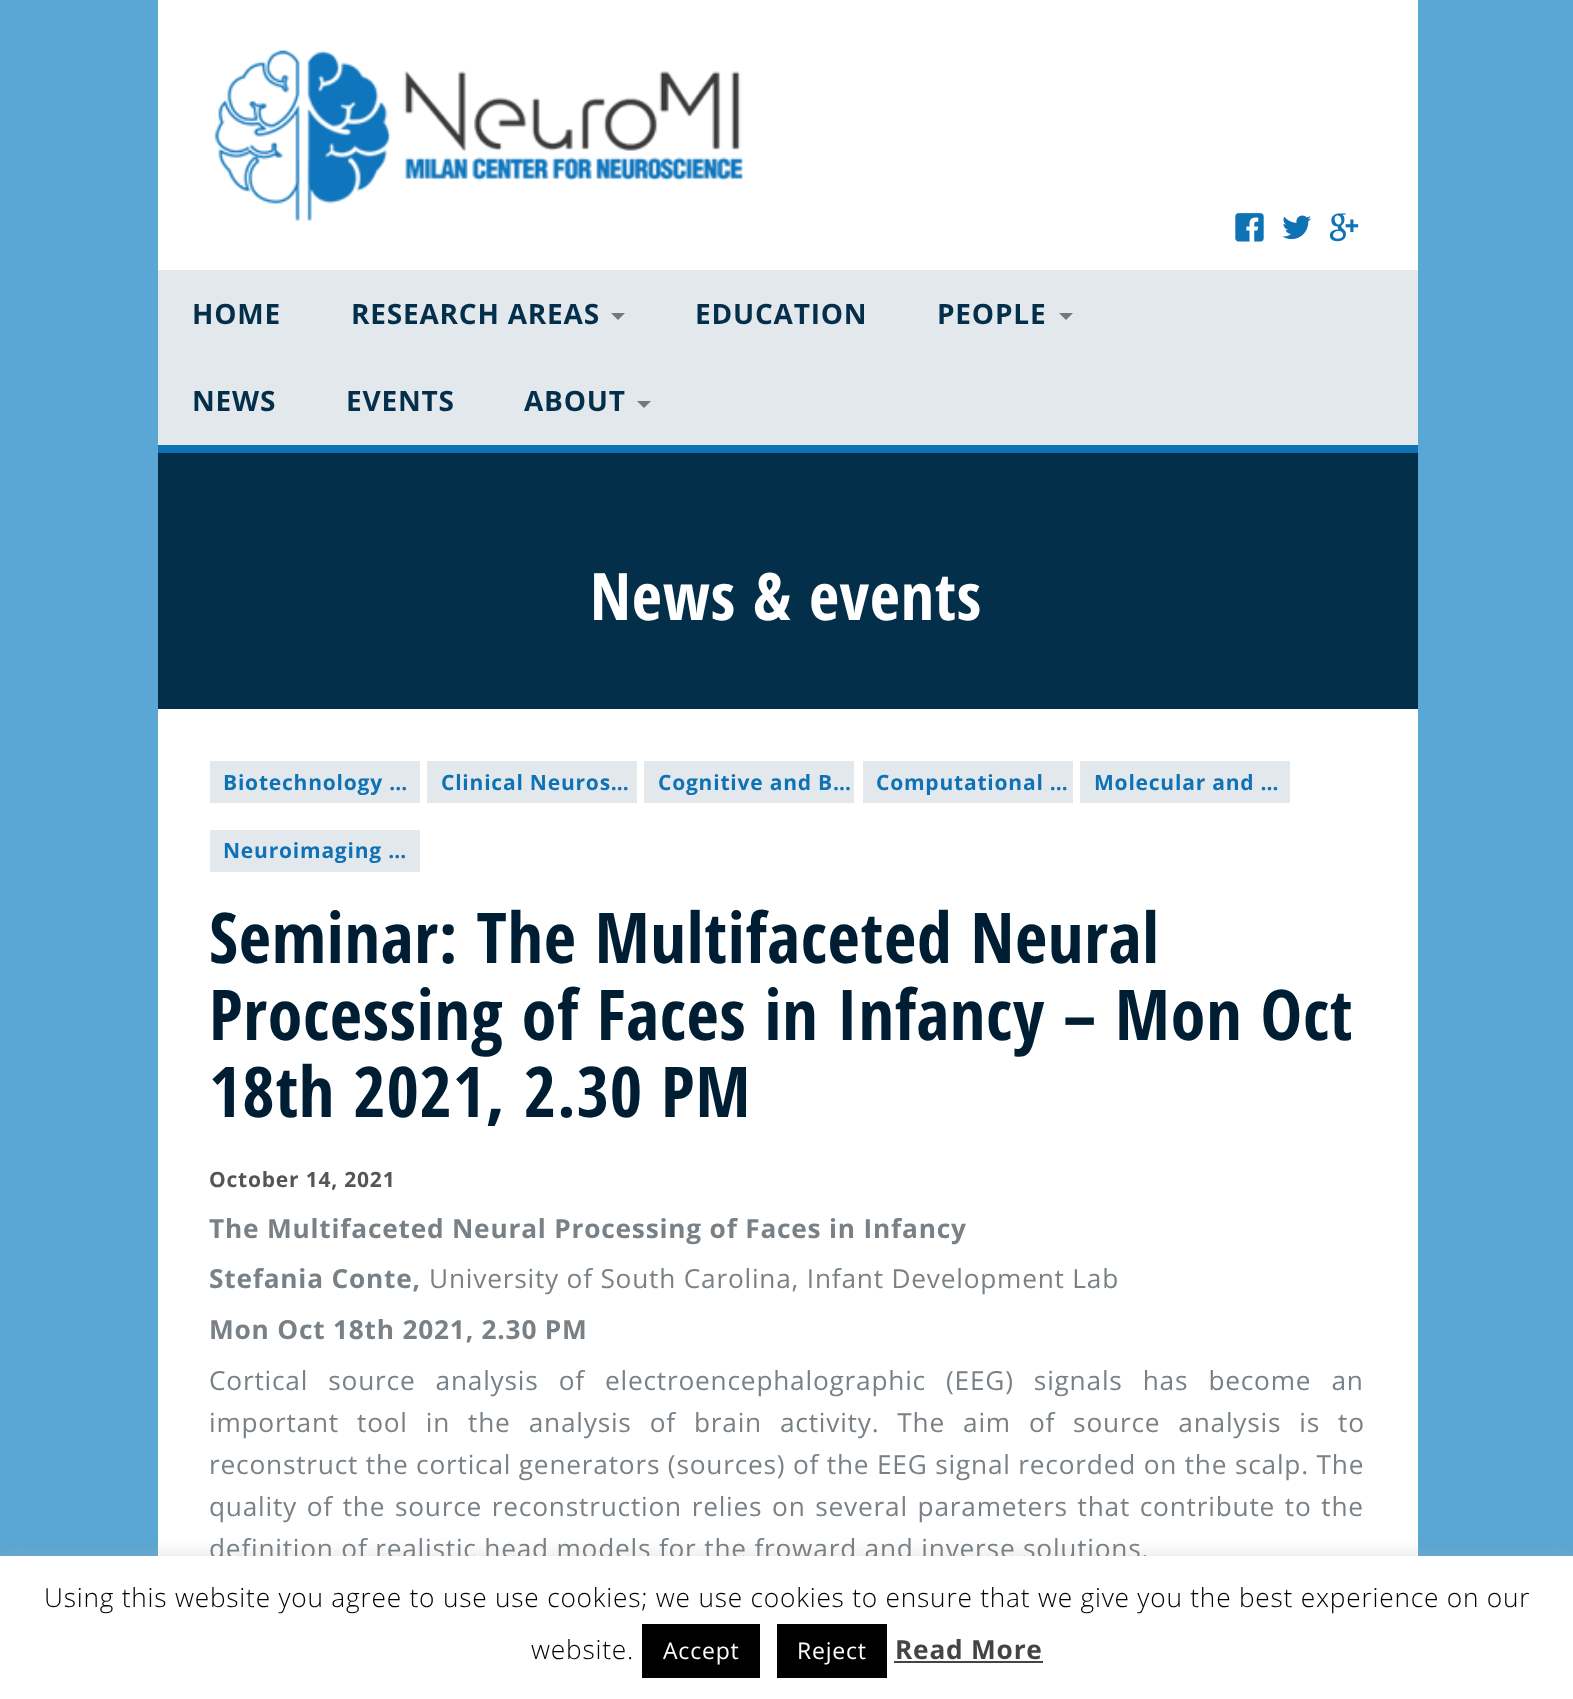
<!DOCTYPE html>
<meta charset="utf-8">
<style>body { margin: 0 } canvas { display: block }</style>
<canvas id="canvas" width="1573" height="1699"></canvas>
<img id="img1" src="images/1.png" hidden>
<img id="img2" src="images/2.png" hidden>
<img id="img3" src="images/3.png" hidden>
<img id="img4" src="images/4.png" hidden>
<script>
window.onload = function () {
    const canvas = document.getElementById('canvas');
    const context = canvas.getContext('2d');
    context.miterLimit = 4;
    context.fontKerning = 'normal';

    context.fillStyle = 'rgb(90, 166, 212)';
    context.fillRect(0, 0, 1573, 1699);
    context.fillStyle = 'rgb(255, 255, 255)';
    context.fillRect(158, 0, 1260, 270);
    context.drawImage(document.getElementById('img1'), 214, 50, 529, 171);
    context.drawImage(document.getElementById('img2'), 1235, 213, 29, 29);
    context.drawImage(document.getElementById('img3'), 1282, 215, 30, 25);
    context.drawImage(document.getElementById('img4'), 1329, 213, 30, 29);
    context.fillStyle = 'rgb(227, 232, 237)';
    context.fillRect(158, 270, 1260, 175);
    context.fillStyle = 'rgb(14, 114, 181)';
    context.fillRect(158, 445, 1260, 8);
    context.fillStyle = 'rgb(119, 119, 119)';
    context.beginPath();
    context.moveTo(611, 313);
    context.lineTo(625, 313);
    context.lineTo(618, 320);
    context.closePath();
    context.fill();
    context.beginPath();
    context.moveTo(1059, 313);
    context.lineTo(1073, 313);
    context.lineTo(1066, 320);
    context.closePath();
    context.fill();
    context.beginPath();
    context.moveTo(637, 401);
    context.lineTo(651, 401);
    context.lineTo(644, 408);
    context.closePath();
    context.fill();
    context.fillStyle = 'rgb(255, 255, 255)';
    context.fillRect(158, 709, 1260, 847);
    context.fillStyle = 'rgb(4, 47, 75)';
    context.fillRect(158, 453, 1260, 256);
    context.fillStyle = 'rgb(227, 232, 237)';
    context.fillRect(210, 761, 210, 42);
    context.fillRect(427, 761, 210, 42);
    context.fillRect(644, 761, 210, 42);
    context.fillRect(863, 761, 210, 42);
    context.fillRect(1080, 761, 210, 42);
    context.fillRect(210, 830, 210, 42);
    context.fillStyle = 'rgba(172, 171, 171, 0.3)';
    context.filter = 'blur(9px)';
    context.beginPath();
    context.rect(0, 1554, 1573, 144);
    context.fill();
    context.filter = 'none';
    context.letterSpacing = '0.79px';
    context.font = 'bold 28px Open Sans';
    context.fillStyle = 'rgb(4, 47, 75)';
    context.fillText('HOME', 192, 324);
    context.fillText('RESEARCH AREAS', 351, 324);
    context.fillText('EDUCATION', 695, 324);
    context.fillText('PEOPLE', 937, 324);
    context.fillText('NEWS', 192, 411);
    context.fillText('EVENTS', 346, 411);
    context.fillText('ABOUT', 524, 411);
    context.font = 'bold 65.5px Open Sans Condensed';
    context.fillStyle = 'rgb(255, 255, 255)';
    context.fillText('News & events', 590, 620);
    context.font = 'bold 21px Open Sans';
    context.fillStyle = 'rgb(14, 114, 181)';
    context.fillText('Biotechnology …', 223, 790);
    context.fillText('Clinical Neuros…', 441, 790);
    context.fillText('Cognitive and B…', 658, 790);
    context.fillText('Computational …', 876, 790);
    context.fillText('Molecular and …', 1094, 790);
    context.fillText('Neuroimaging …', 223, 858);
    context.font = 'bold 70px Open Sans Condensed';
    context.fillStyle = 'rgb(0, 30, 51)';
    context.fillText('Seminar: The Multifaceted Neural', 209, 963);
    context.fillText('Processing of Faces in Infancy – Mon Oct', 209, 1040);
    context.fillText('18th 2021, 2.30 PM', 209, 1117);
    context.font = 'bold 21px Open Sans';
    context.fillStyle = 'rgb(85, 85, 85)';
    context.fillText('October 14, 2021', 209, 1187);
    context.font = 'bold 26.25px Open Sans';
    context.fillStyle = 'rgb(121, 129, 134)';
    context.fillText('The Multifaceted Neural Processing of Faces in Infancy', 209, 1238);
    context.fillText('Stefania Conte,', 209, 1288);
    context.font = '26.25px Open Sans';
    context.fillText('University of South Carolina, Infant Development Lab', 429, 1288);
    context.font = 'bold 26.25px Open Sans';
    context.fillText('Mon Oct 18th 2021, 2.30 PM', 209, 1339);
    context.wordSpacing = '12.5px';
    context.font = '26.25px Open Sans';
    context.fillText('Cortical source analysis of electroencephalographic (EEG) signals has become an', 209, 1390);
    context.wordSpacing = '10.4px';
    context.fillText('important tool in the analysis of brain activity. The aim of source analysis is to', 209, 1432);
    context.wordSpacing = '0px';
    context.fillText('reconstruct the cortical generators (sources) of the EEG signal recorded on the scalp. The', 209, 1474);
    context.wordSpacing = '2.1px';
    context.fillText('quality of the source reconstruction relies on several parameters that contribute to the', 209, 1516);
    context.wordSpacing = '0px';
    context.fillText('definition of realistic head models for the froward and inverse solutions.', 209, 1558);
    context.fillStyle = 'rgb(255, 255, 255)';
    context.fillRect(0, 1556, 1573, 143);
    context.font = '300 26.25px Open Sans';
    context.fillStyle = 'rgb(0, 0, 0)';
    context.fillText('Using this website you agree to use use cookies; we use cookies to ensure that we give you the best experience on our', 44, 1607);
    context.fillText('website.', 531, 1659);
    context.fillRect(642, 1624, 118, 54);
    context.font = '23px Open Sans';
    context.fillStyle = 'rgb(255, 255, 255)';
    context.fillText('Accept', 663, 1659);
    context.fillStyle = 'rgb(0, 0, 0)';
    context.fillRect(777, 1624, 110, 54);
    context.fillStyle = 'rgb(255, 255, 255)';
    context.fillText('Reject', 797, 1659);
    context.font = 'bold 26.25px Open Sans';
    context.fillStyle = 'rgb(68, 68, 68)';
    context.fillText('Read More', 895, 1659);
    context.fillRect(894, 1661, 149, 2);
};
</script>
